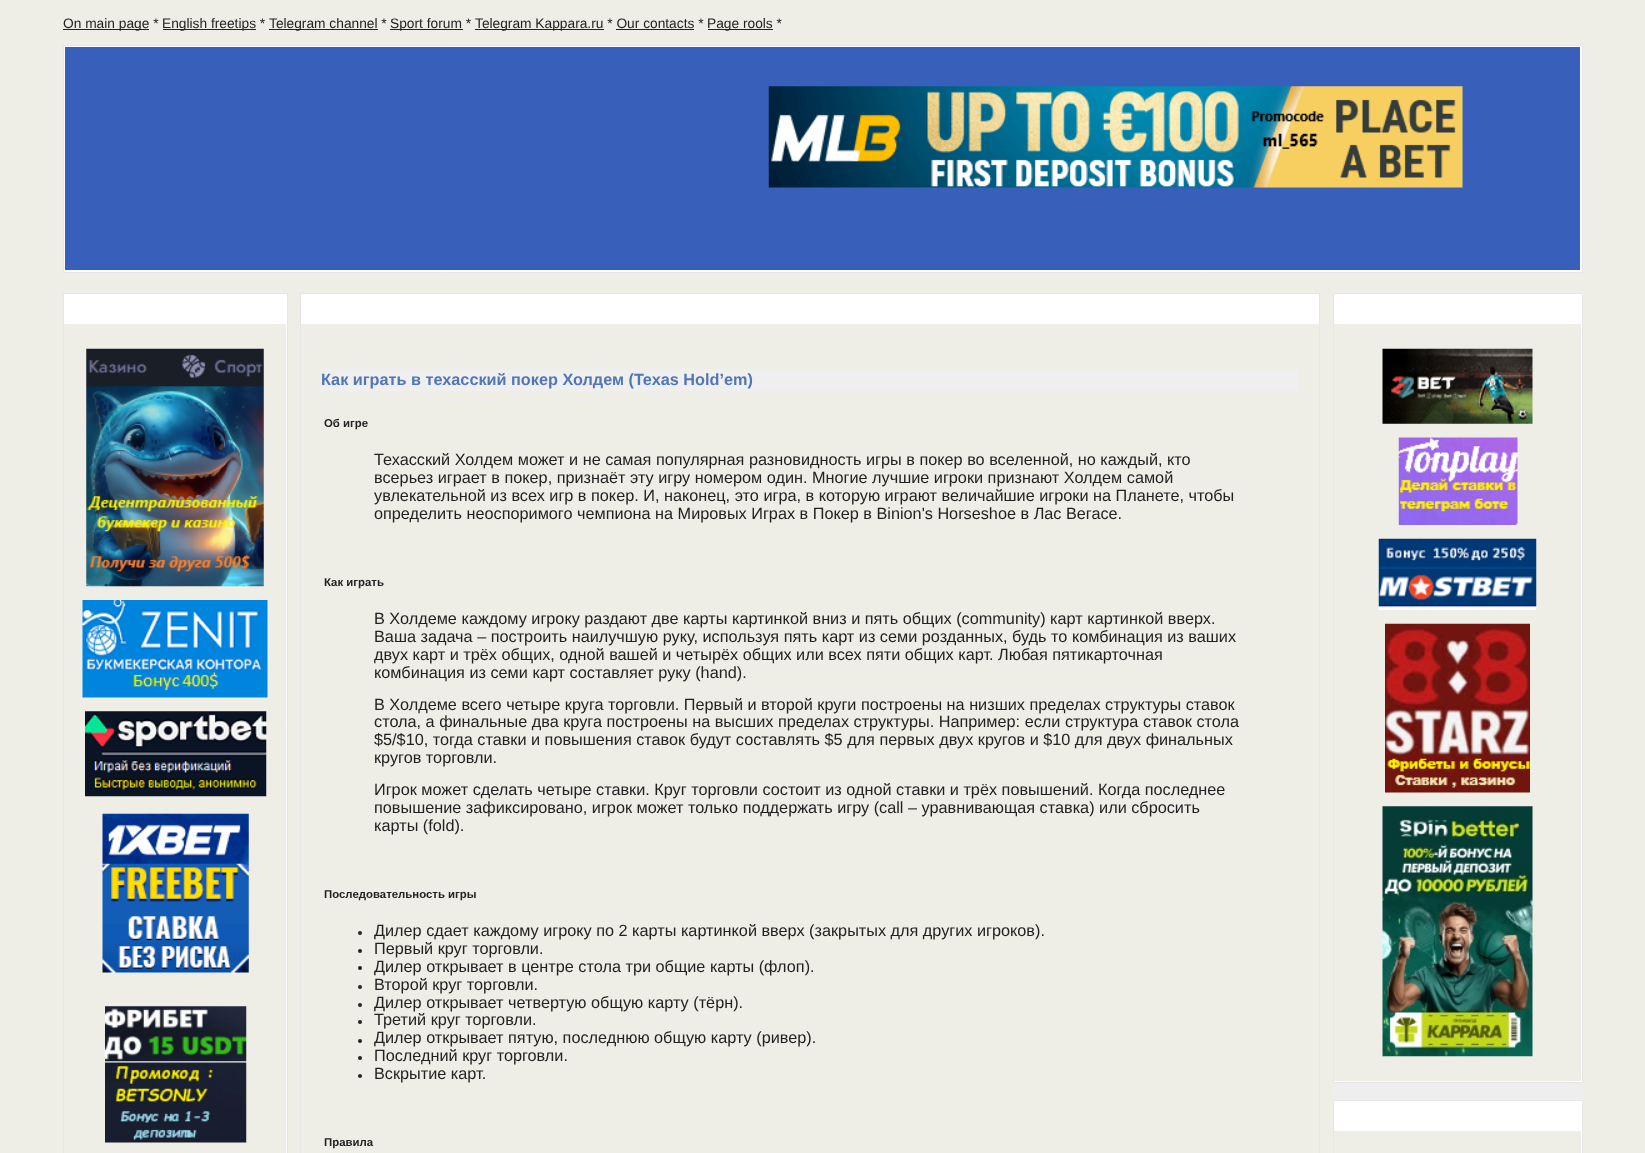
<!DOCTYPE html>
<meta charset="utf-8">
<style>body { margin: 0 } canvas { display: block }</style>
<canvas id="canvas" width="1645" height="1153"></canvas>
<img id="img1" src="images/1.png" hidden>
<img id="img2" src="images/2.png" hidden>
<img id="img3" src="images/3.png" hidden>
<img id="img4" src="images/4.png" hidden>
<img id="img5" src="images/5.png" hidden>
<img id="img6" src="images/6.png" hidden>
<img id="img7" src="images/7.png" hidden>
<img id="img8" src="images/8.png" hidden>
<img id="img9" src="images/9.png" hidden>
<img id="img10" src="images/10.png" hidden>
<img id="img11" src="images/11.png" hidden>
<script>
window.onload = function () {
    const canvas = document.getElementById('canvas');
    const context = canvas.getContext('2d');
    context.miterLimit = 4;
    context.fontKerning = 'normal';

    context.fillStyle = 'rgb(238, 238, 230)';
    context.fillRect(0, 0, 1645, 1153);
    context.fillStyle = 'rgb(34, 34, 34)';
    context.fillRect(63, 29, 86, 1);
    context.fillRect(163, 29, 93, 1);
    context.fillRect(269, 29, 109, 1);
    context.fillRect(390, 29, 73, 1);
    context.fillRect(475, 29, 129, 1);
    context.fillRect(708, 29, 65, 1);
    context.fillRect(616, 29, 78, 1);
    context.fillStyle = 'rgb(255, 255, 255)';
    context.beginPath();
    context.rect(63.5, 45.5, 1519, 227);
    context.fill();
    context.strokeStyle = 'rgb(230, 230, 230)';
    context.stroke();
    context.fillStyle = 'rgb(56, 96, 187)';
    context.fillRect(65, 47, 1515, 223);
    context.drawImage(document.getElementById('img1'), 768, 86, 695, 102);
    context.fillStyle = 'rgb(238, 238, 238)';
    context.fillRect(63, 291, 225, 2);
    context.fillStyle = 'rgb(255, 255, 255)';
    context.beginPath();
    context.rect(63.5, 293.5, 224, 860);
    context.fill();
    context.stroke();
    context.fillStyle = 'rgb(238, 238, 230)';
    context.fillRect(64, 324, 222, 829);
    context.drawImage(document.getElementById('img2'), 86, 348, 178, 239);
    context.drawImage(document.getElementById('img3'), 82, 600, 186, 98);
    context.drawImage(document.getElementById('img4'), 85, 711, 182, 86);
    context.drawImage(document.getElementById('img5'), 102, 813, 147, 160);
    context.drawImage(document.getElementById('img6'), 105, 1006, 142, 137);
    context.fillStyle = 'rgb(255, 255, 255)';
    context.fillRect(301, 294, 1018, 30);
    context.strokeRect(300.5, 293.5, 1019, 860);
    context.fillStyle = 'rgb(239, 239, 239)';
    context.fillRect(321, 369, 978, 22);
    context.fillStyle = 'rgb(34, 34, 34)';
    context.beginPath();
    context.arc(360, 933, 2, 0, 2 * Math.PI);
    context.fill();
    context.beginPath();
    context.arc(360, 951, 2, 0, 2 * Math.PI);
    context.fill();
    context.beginPath();
    context.arc(360, 968, 2, 0, 2 * Math.PI);
    context.fill();
    context.beginPath();
    context.arc(360, 987, 2, 0, 2 * Math.PI);
    context.fill();
    context.beginPath();
    context.arc(360, 1005, 2, 0, 2 * Math.PI);
    context.fill();
    context.beginPath();
    context.arc(360, 1022, 2, 0, 2 * Math.PI);
    context.fill();
    context.beginPath();
    context.arc(360, 1041, 2, 0, 2 * Math.PI);
    context.fill();
    context.beginPath();
    context.arc(360, 1058, 2, 0, 2 * Math.PI);
    context.fill();
    context.beginPath();
    context.arc(360, 1076, 2, 0, 2 * Math.PI);
    context.fill();
    context.fillStyle = 'rgb(238, 238, 238)';
    context.fillRect(1333, 291, 250, 809);
    context.fillStyle = 'rgb(255, 255, 255)';
    context.beginPath();
    context.rect(1333.5, 293.5, 249, 789);
    context.fill();
    context.stroke();
    context.fillStyle = 'rgb(238, 238, 230)';
    context.fillRect(1334, 324, 247, 757);
    context.drawImage(document.getElementById('img7'), 1382, 348, 151, 76);
    context.drawImage(document.getElementById('img8'), 1398, 437, 120, 88);
    context.drawImage(document.getElementById('img9'), 1378, 538, 159, 72);
    context.drawImage(document.getElementById('img10'), 1385, 623, 145, 170);
    context.drawImage(document.getElementById('img11'), 1382, 806, 151, 251);
    context.fillStyle = 'rgb(255, 255, 255)';
    context.beginPath();
    context.rect(1333.5, 1100.5, 249, 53);
    context.fill();
    context.stroke();
    context.fillStyle = 'rgb(238, 238, 230)';
    context.fillRect(1334, 1131, 247, 22);
    context.font = '13.75px Liberation Sans';
    context.fillStyle = 'rgb(34, 34, 34)';
    context.fillText('On main page *', 63, 28);
    context.fillText('English freetips *', 162, 28);
    context.fillText('Telegram channel *', 269, 28);
    context.fillText('Sport forum *', 390, 28);
    context.fillText('Telegram Kappara.ru * Our contacts *', 475, 28);
    context.fillText('Page rools *', 707, 28);
    context.font = 'bold 16.25px Liberation Sans';
    context.fillStyle = 'rgb(81, 118, 181)';
    context.fillText('Как играть в техасский покер Холдем (Texas Hold’em)', 321, 385);
    context.font = 'bold 11.4px Liberation Sans';
    context.fillStyle = 'rgb(34, 34, 34)';
    context.fillText('Об игре', 324, 427);
    context.font = '16.25px Liberation Sans';
    context.fillText('Техасский Холдем может и не самая популярная разновидность игры в покер во вселенной, но каждый, кто', 374, 465);
    context.fillText('всерьез играет в покер, признаёт эту игру номером один. Многие лучшие игроки признают Холдем самой', 374, 483);
    context.fillText('увлекательной из всех игр в покер. И, наконец, это игра, в которую играют величайшие игроки на Планете, чтобы', 374, 501);
    context.fillText('определить неоспоримого чемпиона на Мировых Играх в Покер в Binion\'s Horseshoe в Лас Вегасе.', 374, 519);
    context.font = 'bold 11.4px Liberation Sans';
    context.fillText('Как играть', 324, 586);
    context.font = '16.25px Liberation Sans';
    context.fillText('В Холдеме каждому игроку раздают две карты картинкой вниз и пять общих (community) карт картинкой вверх.', 374, 624);
    context.fillText('Ваша задача – построить наилучшую руку, используя пять карт из семи розданных, будь то комбинация из ваших', 374, 642);
    context.fillText('двух карт и трёх общих, одной вашей и четырёх общих или всех пяти общих карт. Любая пятикарточная', 374, 660);
    context.fillText('комбинация из семи карт составляет руку (hand).', 374, 678);
    context.fillText('В Холдеме всего четыре круга торговли. Первый и второй круги построены на низших пределах структуры ставок', 374, 710);
    context.fillText('стола, а финальные два круга построены на высших пределах структуры. Например: если структура ставок стола', 374, 727);
    context.fillText('$5/$10, тогда ставки и повышения ставок будут составлять $5 для первых двух кругов и $10 для двух финальных', 374, 745);
    context.fillText('кругов торговли.', 374, 763);
    context.fillText('Игрок может сделать четыре ставки. Круг торговли состоит из одной ставки и трёх повышений. Когда последнее', 374, 795);
    context.fillText('повышение зафиксировано, игрок может только поддержать игру (call – уравнивающая ставка) или сбросить', 374, 813);
    context.fillText('карты (fold).', 374, 831);
    context.font = 'bold 11.4px Liberation Sans';
    context.fillText('Последовательность игры', 324, 898);
    context.font = '16.25px Liberation Sans';
    context.fillText('Дилер сдает каждому игроку по 2 карты картинкой вверх (закрытых для других игроков).', 374, 936);
    context.fillText('Первый круг торговли.', 374, 954);
    context.fillText('Дилер открывает в центре стола три общие карты (флоп).', 374, 972);
    context.fillText('Второй круг торговли.', 374, 990);
    context.fillText('Дилер открывает четвертую общую карту (тёрн).', 374, 1008);
    context.fillText('Третий круг торговли.', 374, 1025);
    context.fillText('Дилер открывает пятую, последнюю общую карту (ривер).', 374, 1043);
    context.fillText('Последний круг торговли.', 374, 1061);
    context.fillText('Вскрытие карт.', 374, 1079);
    context.font = 'bold 11.4px Liberation Sans';
    context.fillText('Правила', 324, 1146);
};
</script>
